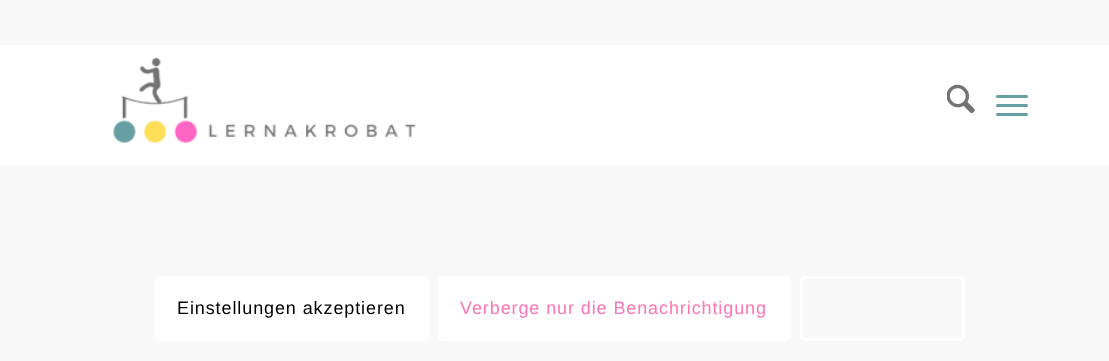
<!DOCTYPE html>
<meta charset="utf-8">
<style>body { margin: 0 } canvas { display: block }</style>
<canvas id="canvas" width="1109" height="361"></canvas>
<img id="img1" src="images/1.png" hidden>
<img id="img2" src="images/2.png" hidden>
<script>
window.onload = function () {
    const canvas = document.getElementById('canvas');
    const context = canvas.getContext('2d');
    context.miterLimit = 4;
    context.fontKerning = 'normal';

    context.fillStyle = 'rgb(248, 248, 248)';
    context.fillRect(0, 0, 1109, 361);
    context.fillStyle = 'rgb(255, 255, 255)';
    context.fillRect(0, 45, 1109, 120);
    context.drawImage(document.getElementById('img1'), 113, 57, 303, 86);
    context.drawImage(document.getElementById('img2'), 947, 84, 28, 30);
    context.fillStyle = 'rgb(102, 158, 161)';
    context.beginPath();
    context.roundRect(996, 104, 32, 3, 1.5);
    context.fill();
    context.beginPath();
    context.roundRect(996, 95, 32, 3, 1.5);
    context.fill();
    context.beginPath();
    context.roundRect(996, 113, 32, 3, 1.5);
    context.fill();
    context.fillStyle = 'rgb(255, 255, 255)';
    context.beginPath();
    context.roundRect(155, 276, 274, 65, 5);
    context.fill();
    context.beginPath();
    context.roundRect(438, 276, 353, 65, 5);
    context.fill();
    context.beginPath();
    context.roundRect(801.5, 277.5, 162, 62, 3.5);
    context.strokeStyle = 'rgb(255, 255, 255)';
    context.lineWidth = 3;
    context.stroke();
    context.letterSpacing = '0.9px';
    context.font = '18px Liberation Sans';
    context.fillStyle = 'rgb(0, 0, 0)';
    context.fillText('Einstellungen akzeptieren', 177, 314);
    context.fillStyle = 'rgb(255, 117, 181)';
    context.fillText('Verberge nur die Benachrichtigung', 460, 314);
};
</script>
